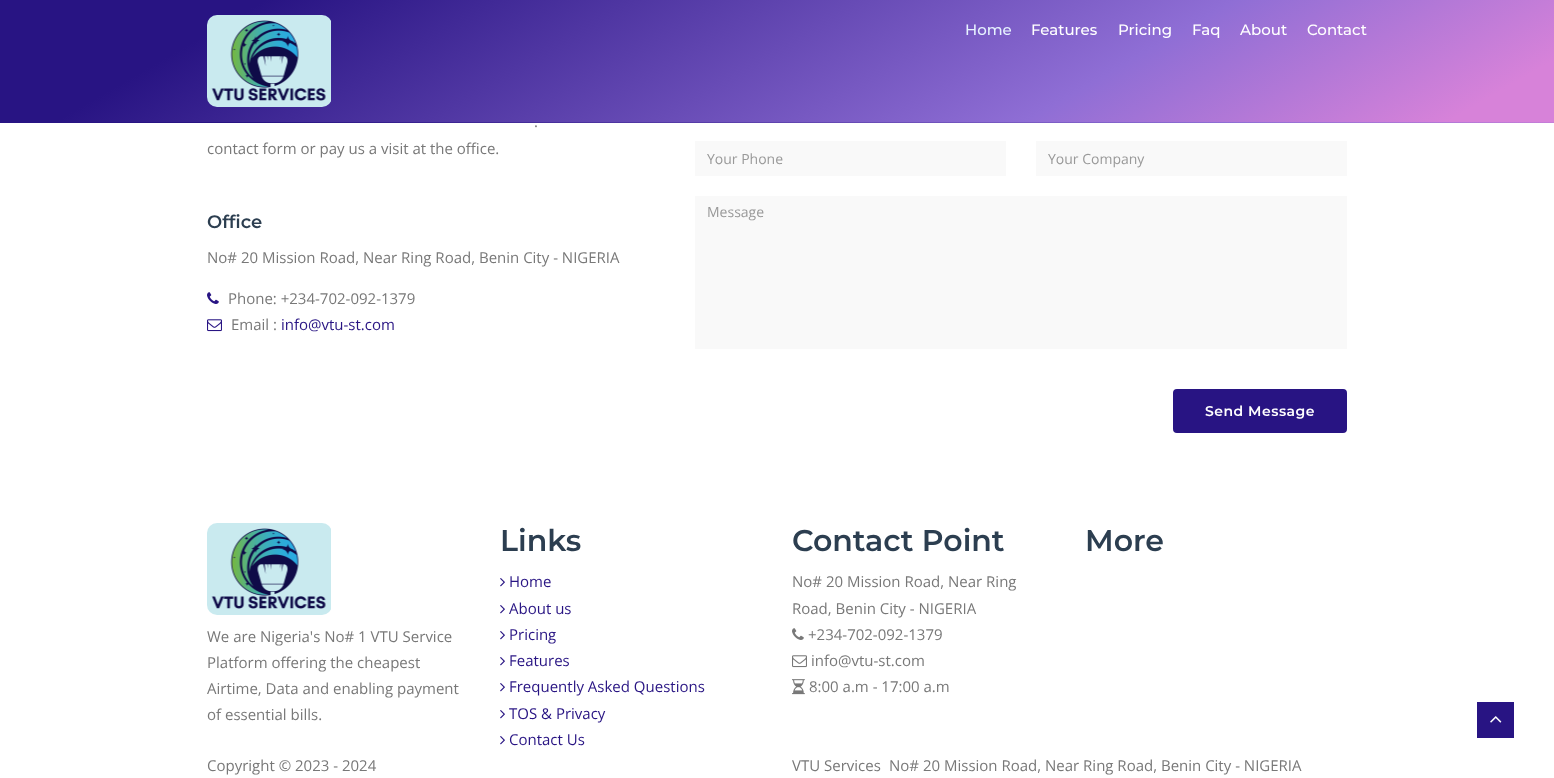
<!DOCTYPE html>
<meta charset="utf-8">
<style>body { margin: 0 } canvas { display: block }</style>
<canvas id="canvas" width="1554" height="778"></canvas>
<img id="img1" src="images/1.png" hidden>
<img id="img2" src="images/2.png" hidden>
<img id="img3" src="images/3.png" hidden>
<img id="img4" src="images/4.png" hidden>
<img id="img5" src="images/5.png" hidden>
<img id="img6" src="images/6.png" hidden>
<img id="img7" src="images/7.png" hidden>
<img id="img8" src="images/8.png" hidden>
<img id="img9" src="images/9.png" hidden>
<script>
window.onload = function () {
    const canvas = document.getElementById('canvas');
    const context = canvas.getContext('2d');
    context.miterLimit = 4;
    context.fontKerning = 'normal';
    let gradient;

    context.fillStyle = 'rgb(255, 255, 255)';
    context.fillRect(0, 0, 1554, 778);
    gradient = context.createLinearGradient(556, -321, 998, 443);
    gradient.addColorStop(0.15, 'rgb(40, 20, 131)');
    gradient.addColorStop(0.7, 'rgb(143, 110, 213)');
    gradient.addColorStop(0.94, 'rgb(215, 130, 217)');
    context.fillStyle = gradient;
    context.fillRect(0, 0, 1554, 122);
    gradient = context.createLinearGradient(556, -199, 998, 565);
    gradient.addColorStop(0.15, 'rgb(40, 20, 131)');
    gradient.addColorStop(0.7, 'rgb(143, 110, 213)');
    gradient.addColorStop(0.94, 'rgb(215, 130, 217)');
    context.fillStyle = gradient;
    context.fillRect(0, 122, 1554, 1);
    context.drawImage(document.getElementById('img1'), 207, 15, 124, 92);
    context.drawImage(document.getElementById('img2'), 207, 292, 12, 12);
    context.drawImage(document.getElementById('img3'), 207, 319, 15, 13);
    context.fillStyle = 'rgb(249, 249, 249)';
    context.fillRect(695, 141, 311, 35);
    context.fillRect(1036, 141, 311, 35);
    context.fillRect(695, 196, 652, 153);
    context.fillStyle = 'rgb(40, 20, 131)';
    context.beginPath();
    context.roundRect(1174, 390, 172, 42, 3);
    context.fill();
    context.strokeStyle = 'rgb(40, 20, 131)';
    context.lineWidth = 2;
    context.stroke();
    context.drawImage(document.getElementById('img4'), 500, 578, 5, 9);
    context.drawImage(document.getElementById('img4'), 500, 605, 5, 9);
    context.drawImage(document.getElementById('img4'), 500, 631, 5, 9);
    context.drawImage(document.getElementById('img4'), 500, 657, 5, 9);
    context.drawImage(document.getElementById('img4'), 500, 683, 5, 9);
    context.drawImage(document.getElementById('img4'), 500, 710, 5, 9);
    context.drawImage(document.getElementById('img4'), 500, 736, 5, 9);
    context.drawImage(document.getElementById('img5'), 792, 628, 12, 12);
    context.drawImage(document.getElementById('img6'), 792, 655, 15, 13);
    context.drawImage(document.getElementById('img7'), 792, 679, 13, 16);
    context.drawImage(document.getElementById('img8'), 207, 523, 124, 92);
    context.fillRect(1477, 702, 37, 36);
    context.drawImage(document.getElementById('img9'), 1490, 716, 12, 7);
    context.font = '500 15px Montserrat';
    context.fillStyle = 'rgb(231, 243, 255)';
    context.fillText('Home', 965, 35);
    context.fillStyle = 'rgb(255, 255, 255)';
    context.fillText('Features', 1031, 35);
    context.fillText('Pricing', 1118, 35);
    context.fillText('Faq', 1192, 35);
    context.fillText('About', 1240, 35);
    context.fillText('Contact', 1307, 35);
    context.font = '15px Open Sans';
    context.fillStyle = 'rgb(120, 120, 120)';
    context.fillText('.', 534, 127);
    context.fillText('contact form or pay us a visit at the office.', 207, 154);
    context.font = '600 18px Montserrat';
    context.fillStyle = 'rgb(44, 62, 80)';
    context.fillText('Office', 207, 228);
    context.font = '15px Open Sans';
    context.fillStyle = 'rgb(120, 120, 120)';
    context.fillText('No# 20 Mission Road, Near Ring Road, Benin City - NIGERIA', 207, 263);
    context.fillText('Phone: +234-702-092-1379', 228, 304);
    context.fillText('Email :', 231, 330);
    context.fillStyle = 'rgb(40, 20, 131)';
    context.fillText('info@vtu-st.com', 281, 330);
    context.font = '14px Open Sans';
    context.fillStyle = 'rgb(153, 153, 153)';
    context.fillText('Your Phone', 707, 164);
    context.fillText('Your Company', 1048, 164);
    context.fillText('Message', 707, 217);
    context.letterSpacing = '0.5px';
    context.font = '600 14px Montserrat';
    context.fillStyle = 'rgb(255, 255, 255)';
    context.fillText('Send Message', 1205, 416);
    context.letterSpacing = '0px';
    context.font = '600 30px Montserrat';
    context.fillStyle = 'rgb(44, 62, 80)';
    context.fillText('Links', 500, 551);
    context.font = '15px Open Sans';
    context.fillStyle = 'rgb(40, 20, 131)';
    context.fillText('Home', 509, 587);
    context.fillText('About us', 509, 614);
    context.fillText('Pricing', 509, 640);
    context.fillText('Features', 509, 666);
    context.fillText('Frequently Asked Questions', 509, 692);
    context.fillText('TOS & Privacy', 509, 719);
    context.fillText('Contact Us', 509, 745);
    context.font = '600 30px Montserrat';
    context.fillStyle = 'rgb(44, 62, 80)';
    context.fillText('Contact Point', 792, 551);
    context.font = '15px Open Sans';
    context.fillStyle = 'rgb(120, 120, 120)';
    context.fillText('No# 20 Mission Road, Near Ring', 792, 587);
    context.fillText('Road, Benin City - NIGERIA', 792, 614);
    context.fillText('+234-702-092-1379', 808, 640);
    context.fillText('info@vtu-st.com', 811, 666);
    context.fillText('8:00 a.m - 17:00 a.m', 809, 692);
    context.font = '600 30px Montserrat';
    context.fillStyle = 'rgb(44, 62, 80)';
    context.fillText('More', 1085, 551);
    context.font = '15px Open Sans';
    context.fillStyle = 'rgb(120, 120, 120)';
    context.fillText('We are Nigeria\'s No# 1 VTU Service', 207, 642);
    context.fillText('Platform offering the cheapest', 207, 668);
    context.fillText('Airtime, Data and enabling payment', 207, 694);
    context.fillText('of essential bills.', 207, 720);
    context.fillText('Copyright © 2023 - 2024', 207, 771);
    context.fillText('VTU Services', 792, 771);
    context.fillText('No# 20 Mission Road, Near Ring Road, Benin City - NIGERIA', 889, 771);
};
</script>
